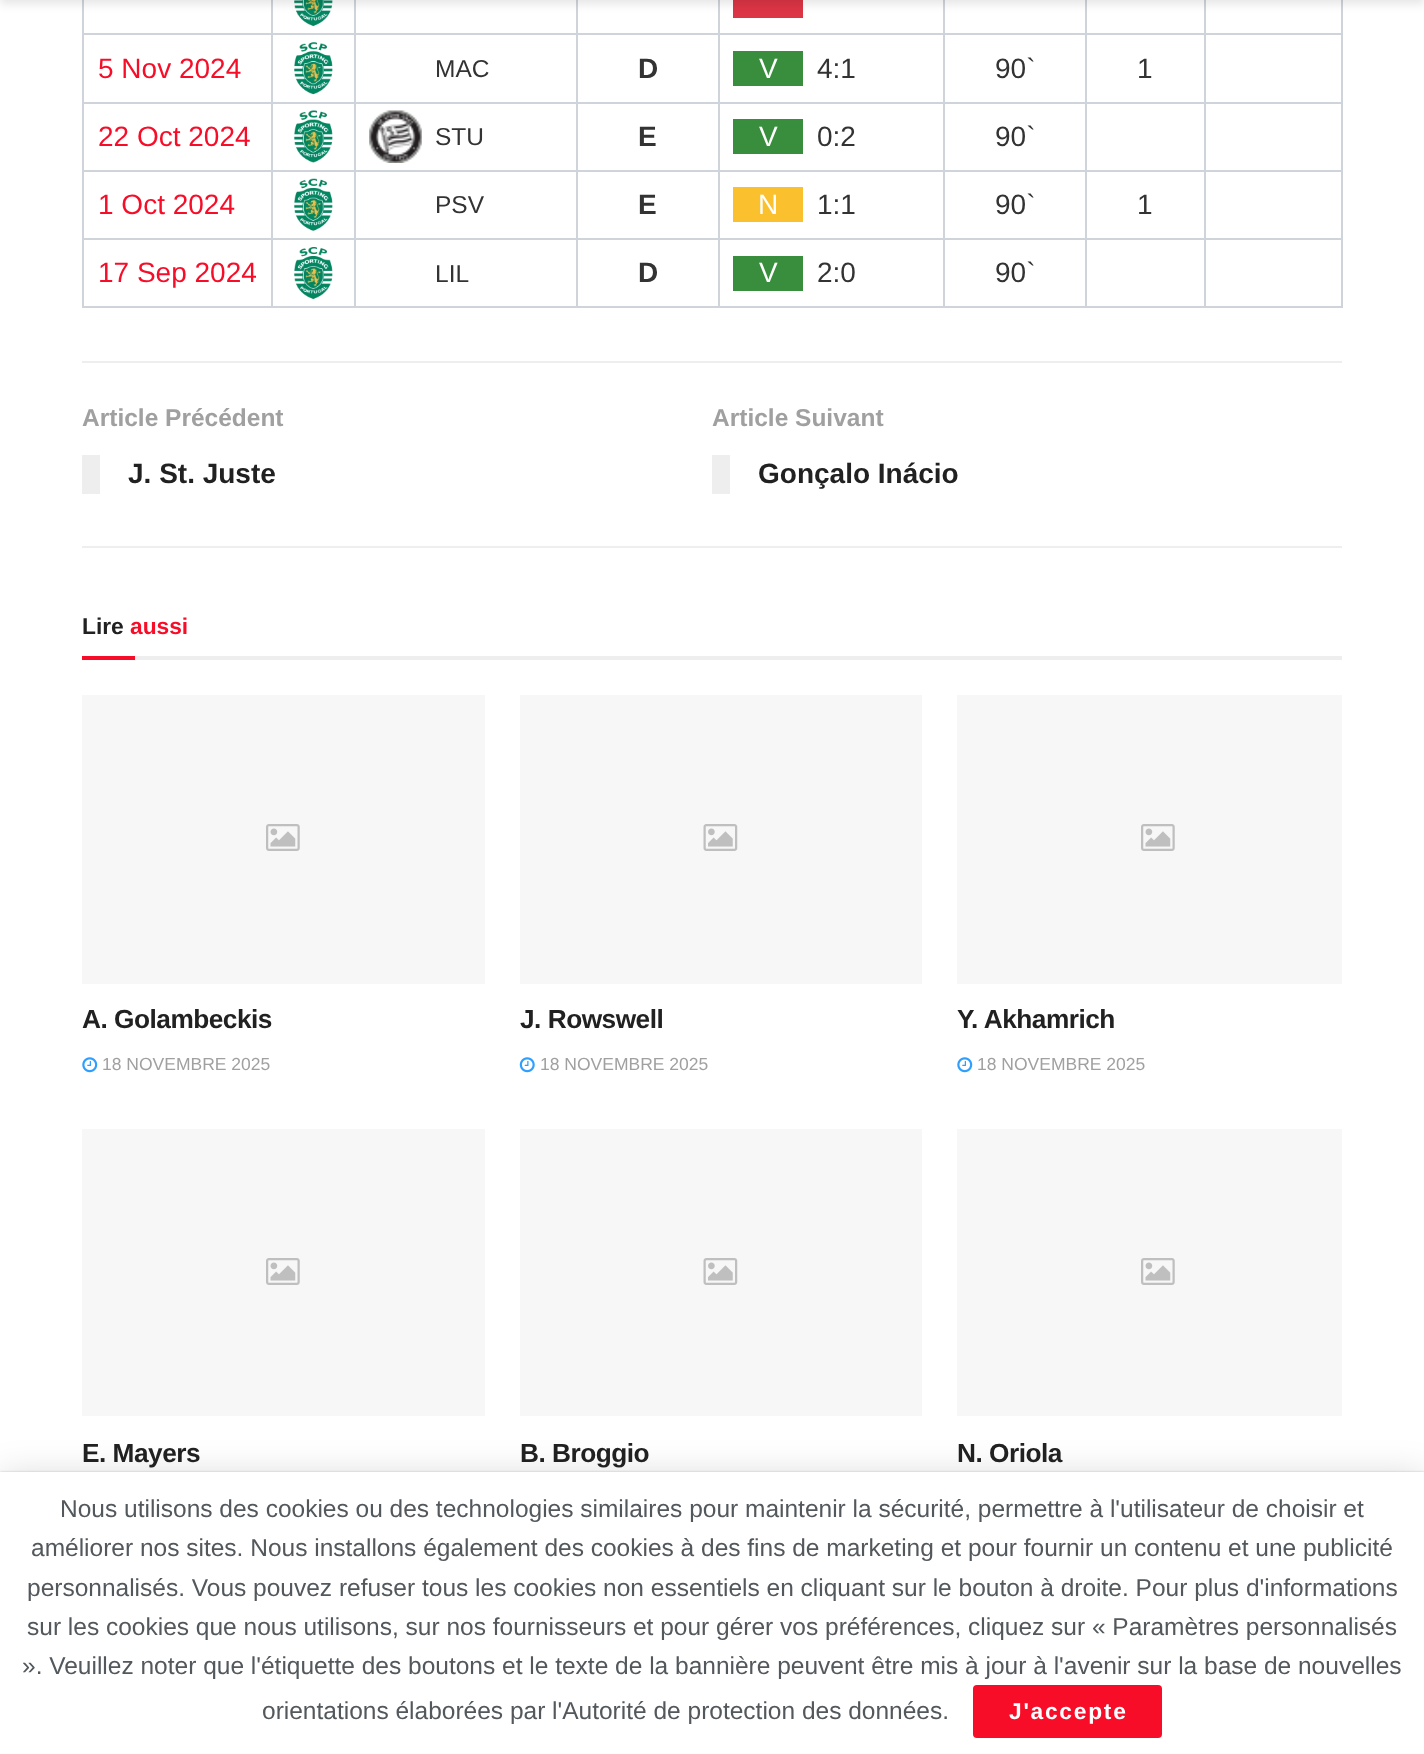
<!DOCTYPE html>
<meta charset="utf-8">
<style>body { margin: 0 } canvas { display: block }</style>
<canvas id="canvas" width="1424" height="1754"></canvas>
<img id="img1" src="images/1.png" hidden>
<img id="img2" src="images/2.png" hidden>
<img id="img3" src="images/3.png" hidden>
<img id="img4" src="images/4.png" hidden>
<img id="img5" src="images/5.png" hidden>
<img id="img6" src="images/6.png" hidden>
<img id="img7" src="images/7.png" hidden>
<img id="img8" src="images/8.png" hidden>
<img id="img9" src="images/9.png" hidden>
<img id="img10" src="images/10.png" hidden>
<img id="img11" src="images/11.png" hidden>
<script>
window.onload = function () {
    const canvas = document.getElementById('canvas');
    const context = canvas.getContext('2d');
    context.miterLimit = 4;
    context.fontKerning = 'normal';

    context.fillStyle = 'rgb(255, 255, 255)';
    context.fillRect(0, 0, 1424, 1754);
    context.fillStyle = 'rgb(206, 212, 218)';
    context.fillRect(82, 0, 2, 308);
    context.fillRect(271, 0, 2, 103);
    context.fillRect(354, 0, 2, 103);
    context.drawImage(document.getElementById('img1'), 294, 0, 39, 27);
    context.fillRect(576, 0, 2, 103);
    context.fillRect(718, 0, 2, 103);
    context.fillRect(943, 0, 2, 103);
    context.fillStyle = 'rgb(220, 53, 69)';
    context.fillRect(733, 0, 70, 18);
    context.fillStyle = 'rgb(206, 212, 218)';
    context.fillRect(1085, 0, 2, 103);
    context.fillRect(1204, 0, 2, 103);
    context.fillRect(1341, 0, 2, 103);
    context.fillStyle = 'rgba(0, 0, 0, 0.1)';
    context.filter = 'blur(5px)';
    context.beginPath();
    context.rect(0, -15, 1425, 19);
    context.fill();
    context.filter = 'none';
    context.fillStyle = 'rgb(206, 212, 218)';
    context.fillRect(84, 33, 189, 2);
    context.fillRect(273, 33, 82, 2);
    context.fillRect(355, 33, 223, 2);
    context.fillRect(578, 33, 141, 2);
    context.fillRect(719, 33, 226, 2);
    context.fillRect(945, 33, 142, 2);
    context.fillRect(1087, 33, 119, 2);
    context.fillRect(1206, 33, 136, 2);
    context.fillRect(84, 102, 271, 2);
    context.drawImage(document.getElementById('img2'), 293, 42, 40, 53);
    context.fillRect(354, 103, 2, 205);
    context.fillRect(355, 102, 223, 2);
    context.fillRect(578, 102, 764, 2);
    context.fillStyle = 'rgb(56, 142, 60)';
    context.fillRect(733, 51, 70, 35);
    context.fillStyle = 'rgb(206, 212, 218)';
    context.fillRect(271, 103, 2, 205);
    context.fillRect(84, 170, 189, 2);
    context.fillRect(273, 170, 82, 2);
    context.drawImage(document.getElementById('img3'), 293, 110, 40, 53);
    context.fillRect(576, 103, 2, 205);
    context.fillRect(355, 170, 223, 2);
    context.drawImage(document.getElementById('img4'), 369, 110, 53, 53);
    context.fillRect(718, 103, 2, 205);
    context.fillRect(578, 170, 141, 2);
    context.fillRect(943, 103, 2, 205);
    context.fillRect(719, 170, 226, 2);
    context.fillStyle = 'rgb(56, 142, 60)';
    context.fillRect(733, 119, 70, 35);
    context.fillStyle = 'rgb(206, 212, 218)';
    context.fillRect(1085, 103, 2, 205);
    context.fillRect(945, 170, 142, 2);
    context.fillRect(1204, 103, 2, 205);
    context.fillRect(1087, 170, 119, 2);
    context.fillRect(1341, 103, 2, 205);
    context.fillRect(1206, 170, 136, 2);
    context.fillRect(84, 238, 271, 2);
    context.drawImage(document.getElementById('img5'), 293, 178, 40, 54);
    context.fillRect(355, 238, 223, 2);
    context.fillRect(578, 238, 764, 2);
    context.fillStyle = 'rgb(251, 192, 45)';
    context.fillRect(733, 187, 70, 35);
    context.fillStyle = 'rgb(206, 212, 218)';
    context.fillRect(84, 306, 271, 2);
    context.drawImage(document.getElementById('img6'), 294, 247, 39, 53);
    context.fillRect(355, 306, 223, 2);
    context.fillRect(578, 306, 764, 2);
    context.fillStyle = 'rgb(56, 142, 60)';
    context.fillRect(733, 256, 70, 35);
    context.fillStyle = 'rgb(238, 238, 238)';
    context.fillRect(82, 361, 1260, 2);
    context.fillRect(82, 546, 1260, 2);
    context.fillRect(82, 455, 18, 39);
    context.fillRect(712, 455, 18, 39);
    context.fillRect(135, 656, 1207, 4);
    context.fillStyle = 'rgb(247, 13, 40)';
    context.fillRect(82, 656, 53, 4);
    context.fillStyle = 'rgb(247, 247, 247)';
    context.fillRect(82, 695, 403, 289);
    context.drawImage(document.getElementById('img7'), 266, 824, 34, 27);
    context.drawImage(document.getElementById('img8'), 82, 1057, 16, 16);
    context.fillRect(520, 695, 402, 289);
    context.drawImage(document.getElementById('img9'), 703, 824, 35, 27);
    context.drawImage(document.getElementById('img10'), 519, 1057, 16, 16);
    context.fillRect(957, 695, 385, 289);
    context.drawImage(document.getElementById('img7'), 1141, 824, 34, 27);
    context.drawImage(document.getElementById('img11'), 957, 1057, 16, 16);
    context.fillRect(82, 1129, 403, 287);
    context.drawImage(document.getElementById('img7'), 266, 1258, 34, 27);
    context.fillRect(520, 1129, 402, 287);
    context.drawImage(document.getElementById('img9'), 703, 1258, 35, 27);
    context.fillRect(957, 1129, 385, 287);
    context.drawImage(document.getElementById('img7'), 1141, 1258, 34, 27);
    context.fillStyle = 'rgba(0, 0, 0, 0.15)';
    context.filter = 'blur(17.5px)';
    context.beginPath();
    context.rect(0, 1475, 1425, 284);
    context.fill();
    context.filter = 'none';
    context.fillStyle = 'rgba(0, 0, 0, 0.2)';
    context.filter = 'blur(1px)';
    context.beginPath();
    context.rect(0, 1472, 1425, 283);
    context.fill();
    context.filter = 'none';
    context.fillStyle = 'rgb(255, 255, 255)';
    context.fillRect(0, 1472, 1424, 282);
    context.fillStyle = 'rgb(247, 13, 40)';
    context.beginPath();
    context.roundRect(973, 1685, 189, 53, 4);
    context.fill();
    context.font = '28px Liberation Sans';
    context.fillText('5 Nov 2024', 98, 78);
    context.font = '24.5px Liberation Sans';
    context.fillStyle = 'rgb(51, 51, 51)';
    context.fillText('MAC', 435, 77);
    context.font = 'bold 28px Liberation Sans';
    context.fillText('D', 638, 78);
    context.font = '28px Liberation Sans';
    context.fillStyle = 'rgb(255, 255, 255)';
    context.fillText('V', 759, 78);
    context.fillStyle = 'rgb(51, 51, 51)';
    context.fillText('4:1', 817, 78);
    context.fillText('90`', 995, 78);
    context.fillText('1', 1137, 78);
    context.fillStyle = 'rgb(247, 13, 40)';
    context.fillText('22 Oct 2024', 98, 146);
    context.font = '24.5px Liberation Sans';
    context.fillStyle = 'rgb(51, 51, 51)';
    context.fillText('STU', 435, 145);
    context.font = 'bold 28px Liberation Sans';
    context.fillText('E', 638, 146);
    context.font = '28px Liberation Sans';
    context.fillStyle = 'rgb(255, 255, 255)';
    context.fillText('V', 759, 146);
    context.fillStyle = 'rgb(51, 51, 51)';
    context.fillText('0:2', 817, 146);
    context.fillText('90`', 995, 146);
    context.fillStyle = 'rgb(247, 13, 40)';
    context.fillText('1 Oct 2024', 98, 214);
    context.font = '24.5px Liberation Sans';
    context.fillStyle = 'rgb(51, 51, 51)';
    context.fillText('PSV', 435, 213);
    context.font = 'bold 28px Liberation Sans';
    context.fillText('E', 638, 214);
    context.font = '28px Liberation Sans';
    context.fillStyle = 'rgb(255, 255, 255)';
    context.fillText('N', 758, 214);
    context.fillStyle = 'rgb(51, 51, 51)';
    context.fillText('1:1', 817, 214);
    context.fillText('90`', 995, 214);
    context.fillText('1', 1137, 214);
    context.fillStyle = 'rgb(247, 13, 40)';
    context.fillText('17 Sep 2024', 98, 282);
    context.font = '24.5px Liberation Sans';
    context.fillStyle = 'rgb(51, 51, 51)';
    context.fillText('LIL', 435, 282);
    context.font = 'bold 28px Liberation Sans';
    context.fillText('D', 638, 282);
    context.font = '28px Liberation Sans';
    context.fillStyle = 'rgb(255, 255, 255)';
    context.fillText('V', 759, 282);
    context.fillStyle = 'rgb(51, 51, 51)';
    context.fillText('2:0', 817, 282);
    context.fillText('90`', 995, 282);
    context.font = 'bold 24.5px Liberation Sans';
    context.fillStyle = 'rgb(160, 160, 160)';
    context.fillText('Article Précédent', 82, 426);
    context.font = 'bold 28px Liberation Sans';
    context.fillStyle = 'rgb(33, 33, 33)';
    context.fillText('J. St. Juste', 128, 483);
    context.font = 'bold 24.5px Liberation Sans';
    context.fillStyle = 'rgb(160, 160, 160)';
    context.fillText('Article Suivant', 712, 426);
    context.font = 'bold 28px Liberation Sans';
    context.fillStyle = 'rgb(33, 33, 33)';
    context.fillText('Gonçalo Inácio', 758, 483);
    context.font = 'bold 22.75px Liberation Sans';
    context.fillText('Lire', 82, 634);
    context.fillStyle = 'rgb(247, 13, 40)';
    context.fillText('aussi', 130, 634);
    context.letterSpacing = '-0.5px';
    context.font = 'bold 26.25px Liberation Sans';
    context.fillStyle = 'rgb(33, 33, 33)';
    context.fillText('A. Golambeckis', 82, 1028);
    context.letterSpacing = '0px';
    context.font = '17.5px Liberation Sans';
    context.fillStyle = 'rgb(160, 160, 160)';
    context.fillText('18 NOVEMBRE 2025', 102, 1070);
    context.letterSpacing = '-0.5px';
    context.font = 'bold 26.25px Liberation Sans';
    context.fillStyle = 'rgb(33, 33, 33)';
    context.fillText('J. Rowswell', 520, 1028);
    context.letterSpacing = '0px';
    context.font = '17.5px Liberation Sans';
    context.fillStyle = 'rgb(160, 160, 160)';
    context.fillText('18 NOVEMBRE 2025', 540, 1070);
    context.letterSpacing = '-0.5px';
    context.font = 'bold 26.25px Liberation Sans';
    context.fillStyle = 'rgb(33, 33, 33)';
    context.fillText('Y. Akhamrich', 957, 1028);
    context.letterSpacing = '0px';
    context.font = '17.5px Liberation Sans';
    context.fillStyle = 'rgb(160, 160, 160)';
    context.fillText('18 NOVEMBRE 2025', 977, 1070);
    context.letterSpacing = '-0.5px';
    context.font = 'bold 26.25px Liberation Sans';
    context.fillStyle = 'rgb(33, 33, 33)';
    context.fillText('E. Mayers', 82, 1462);
    context.fillText('B. Broggio', 520, 1462);
    context.fillText('N. Oriola', 957, 1462);
    context.letterSpacing = '0px';
    context.font = '24.5px Liberation Sans';
    context.fillStyle = 'rgb(83, 88, 92)';
    context.fillText('Nous utilisons des cookies ou des technologies similaires pour maintenir la sécurité, permettre à l\'utilisateur de choisir et', 60, 1517);
    context.fillText('améliorer nos sites. Nous installons également des cookies à des fins de marketing et pour fournir un contenu et une publicité', 31, 1556);
    context.fillText('personnalisés. Vous pouvez refuser tous les cookies non essentiels en cliquant sur le bouton à droite. Pour plus d\'informations', 27, 1596);
    context.fillText('sur les cookies que nous utilisons, sur nos fournisseurs et pour gérer vos préférences, cliquez sur « Paramètres personnalisés', 27, 1635);
    context.fillText('». Veuillez noter que l\'étiquette des boutons et le texte de la bannière peuvent être mis à jour à l\'avenir sur la base de nouvelles', 22, 1674);
    context.fillText('orientations élaborées par l\'Autorité de protection des données.', 262, 1719);
    context.letterSpacing = '1.75px';
    context.font = 'bold 22.75px Liberation Sans';
    context.fillStyle = 'rgb(255, 255, 255)';
    context.fillText('J\'accepte', 1009, 1719);
};
</script>
